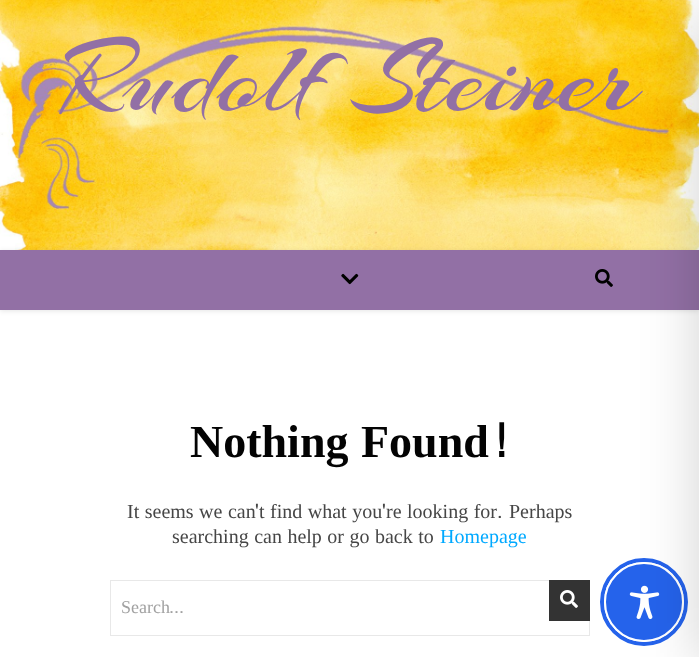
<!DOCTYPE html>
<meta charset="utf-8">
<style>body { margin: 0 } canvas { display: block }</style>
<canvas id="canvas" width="699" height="657"></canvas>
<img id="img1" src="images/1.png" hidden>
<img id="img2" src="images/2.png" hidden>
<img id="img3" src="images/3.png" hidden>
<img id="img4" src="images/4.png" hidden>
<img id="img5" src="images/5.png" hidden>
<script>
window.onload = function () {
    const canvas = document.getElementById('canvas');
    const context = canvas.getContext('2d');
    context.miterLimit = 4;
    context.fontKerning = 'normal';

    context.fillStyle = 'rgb(255, 255, 255)';
    context.fillRect(0, 0, 699, 657);
    context.drawImage(document.getElementById('img1'), 0, 0, 699, 250);
    context.fillStyle = 'rgba(0, 0, 0, 0.1)';
    context.filter = 'blur(2.5px)';
    context.beginPath();
    context.rect(0, 251, 699, 60);
    context.fill();
    context.filter = 'none';
    context.fillStyle = 'rgb(146, 112, 165)';
    context.fillRect(0, 250, 699, 60);
    context.drawImage(document.getElementById('img2'), 341, 273, 18, 12);
    context.drawImage(document.getElementById('img3'), 595, 269, 18, 18);
    context.strokeStyle = 'rgb(232, 232, 232)';
    context.strokeRect(110.5, 580.5, 479, 55);
    context.fillStyle = 'rgb(51, 51, 51)';
    context.fillRect(549, 580, 41, 41);
    context.drawImage(document.getElementById('img4'), 560, 590, 18, 18);
    context.beginPath();
    context.arc(644, 602, 42, 0, 2 * Math.PI);
    context.strokeStyle = 'rgb(37, 99, 235)';
    context.lineWidth = 4;
    context.stroke();
    context.fillStyle = 'rgb(37, 99, 235)';
    context.beginPath();
    context.arc(644, 602, 39, 0, 2 * Math.PI);
    context.fill();
    context.strokeStyle = 'rgb(255, 255, 255)';
    context.lineWidth = 2;
    context.stroke();
    context.drawImage(document.getElementById('img5'), 629, 585, 31, 35);
    context.fillStyle = 'rgba(0, 0, 0, 0.2)';
    context.filter = 'blur(30px)';
    context.beginPath();
    context.rect(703, 10, 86, 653);
    context.fill();
    context.filter = 'none';
    context.font = '111px Arizonia';
    context.fillStyle = 'rgb(146, 112, 165)';
    context.fillText('Rudolf Steiner', 61, 110);
    context.wordSpacing = '1px';
    context.font = 'bold 46px Liberation Serif';
    context.fillStyle = 'rgb(3, 3, 3)';
    context.fillText('Nothing Found', 190, 457);
    context.wordSpacing = '0px';
    context.font = 'bold 46px Chenla';
    context.fillText('!', 489, 457);
    context.wordSpacing = '0.5px';
    context.font = '20px Liberation Serif';
    context.fillStyle = 'rgb(70, 70, 70)';
    context.fillText('It seems we can', 127, 518);
    context.wordSpacing = '0px';
    context.font = '20px Chenla';
    context.fillText('\'', 255, 518);
    context.wordSpacing = '0.5px';
    context.font = '20px Liberation Serif';
    context.fillText('t find what you', 259, 518);
    context.wordSpacing = '0px';
    context.font = '20px Chenla';
    context.fillText('\'', 382, 518);
    context.wordSpacing = '0.5px';
    context.font = '20px Liberation Serif';
    context.fillText('re looking for', 386, 518);
    context.wordSpacing = '0px';
    context.font = '20px Chenla';
    context.fillText('.', 497, 518);
    context.font = '20px Liberation Serif';
    context.fillText('Perhaps', 509, 518);
    context.wordSpacing = '0.5px';
    context.fillText('searching can help or go back to', 172, 543);
    context.wordSpacing = '0px';
    context.fillStyle = 'rgb(0, 169, 255)';
    context.fillText('Homepage', 440, 543);
    context.font = '18px Liberation Serif';
    context.fillStyle = 'rgb(161, 161, 161)';
    context.fillText('Search', 121, 613);
    context.font = '18px Chenla';
    context.fillText('...', 169, 613);
};
</script>
